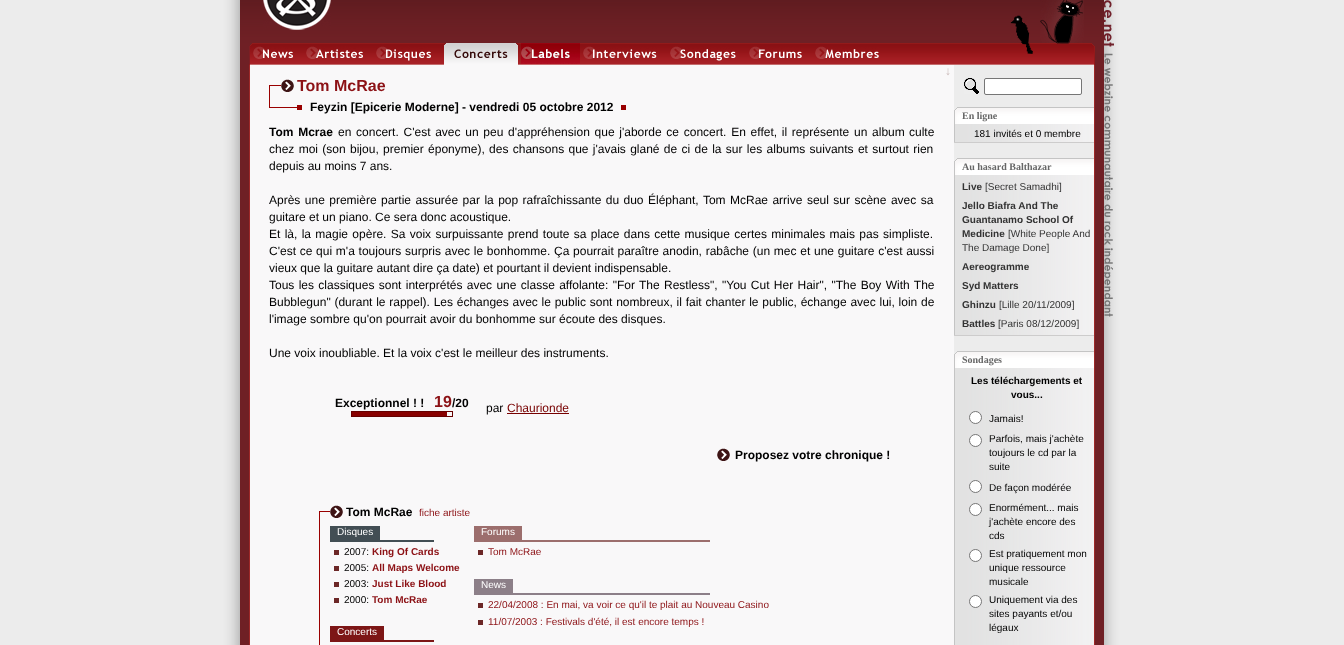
<!DOCTYPE html>
<meta charset="utf-8">
<style>body { margin: 0 } canvas { display: block }</style>
<canvas id="canvas" width="1344" height="645"></canvas>
<img id="img1" src="images/19.png" hidden>
<img id="img2" src="images/1.png" hidden>
<img id="img3" src="images/2.png" hidden>
<img id="img4" src="images/3.png" hidden>
<img id="img5" src="images/4.png" hidden>
<img id="img6" src="images/5.png" hidden>
<img id="img7" src="images/6.png" hidden>
<img id="img8" src="images/7.png" hidden>
<img id="img9" src="images/8.png" hidden>
<img id="img10" src="images/9.png" hidden>
<img id="img11" src="images/10.png" hidden>
<img id="img12" src="images/11.png" hidden>
<img id="img13" src="images/12.png" hidden>
<img id="img14" src="images/13.png" hidden>
<img id="img15" src="images/14.png" hidden>
<img id="img16" src="images/15.png" hidden>
<img id="img17" src="images/16.png" hidden>
<img id="img18" src="images/17.png" hidden>
<img id="img19" src="images/18.png" hidden>
<img id="img20" src="images/20.png" hidden>
<img id="img21" src="images/21.png" hidden>
<img id="img22" src="images/22.png" hidden>
<img id="img23" src="images/23.png" hidden>
<img id="img24" src="images/24.png" hidden>
<img id="img25" src="images/25.png" hidden>
<script>
window.onload = function () {
    const canvas = document.getElementById('canvas');
    const context = canvas.getContext('2d');
    context.miterLimit = 4;
    context.fontKerning = 'normal';

    context.fillStyle = 'rgb(236, 236, 236)';
    context.fillRect(0, 0, 1344, 645);
    context.drawImage(document.getElementById('img1'), 222, 0, 900, 645);
    context.drawImage(document.getElementById('img2'), 240, 0, 864, 65);
    context.drawImage(document.getElementById('img3'), 263, 0, 68, 30);
    context.drawImage(document.getElementById('img4'), 1010, 15, 20, 28);
    context.drawImage(document.getElementById('img5'), 1022, 43, 11, 11);
    context.drawImage(document.getElementById('img6'), 1040, 0, 44, 43);
    context.drawImage(document.getElementById('img7'), 1056, 43, 13, 1);
    context.drawImage(document.getElementById('img8'), 1104, 0, 10, 317);
    context.drawImage(document.getElementById('img9'), 240, 43, 12, 22);
    context.drawImage(document.getElementById('img10'), 253, 46, 40, 13);
    context.drawImage(document.getElementById('img11'), 306, 46, 57, 13);
    context.drawImage(document.getElementById('img12'), 376, 46, 55, 15);
    context.drawImage(document.getElementById('img13'), 444, 43, 74, 22);
    context.drawImage(document.getElementById('img14'), 521, 43, 59, 22);
    context.drawImage(document.getElementById('img15'), 583, 46, 74, 13);
    context.drawImage(document.getElementById('img16'), 670, 46, 66, 15);
    context.drawImage(document.getElementById('img17'), 749, 46, 53, 13);
    context.drawImage(document.getElementById('img18'), 815, 46, 64, 13);
    context.drawImage(document.getElementById('img19'), 1092, 43, 12, 22);
    context.fillStyle = 'rgb(153, 0, 0)';
    context.fillRect(269, 85, 1, 22);
    context.fillRect(270, 85, 11, 1);
    context.drawImage(document.getElementById('img20'), 281, 79, 13, 13);
    context.fillRect(269, 107, 28, 1);
    context.fillRect(297, 105, 5, 5);
    context.fillRect(621, 105, 5, 5);
    context.fillStyle = 'rgb(102, 0, 0)';
    context.fillRect(351, 411, 102, 6);
    context.fillStyle = 'rgb(136, 0, 0)';
    context.fillRect(352, 412, 95, 4);
    context.fillStyle = 'rgb(249, 248, 249)';
    context.fillRect(447, 412, 5, 4);
    context.fillStyle = 'rgb(119, 0, 0)';
    context.fillRect(507, 413, 62, 1);
    context.drawImage(document.getElementById('img20'), 717, 448, 13, 13);
    context.fillStyle = 'rgb(153, 0, 0)';
    context.fillRect(319, 511, 1, 134);
    context.drawImage(document.getElementById('img20'), 330, 505, 13, 13);
    context.fillRect(319, 511, 11, 1);
    context.fillStyle = 'rgb(66, 78, 84)';
    context.fillRect(330, 526, 50, 14);
    context.fillRect(330, 540, 104, 2);
    context.fillStyle = 'rgb(108, 39, 39)';
    context.fillRect(334, 550, 5, 5);
    context.fillRect(334, 566, 5, 5);
    context.fillRect(334, 582, 5, 5);
    context.fillRect(334, 598, 5, 5);
    context.fillStyle = 'rgb(125, 22, 22)';
    context.fillRect(330, 626, 54, 14);
    context.fillRect(330, 640, 104, 2);
    context.fillStyle = 'rgb(156, 110, 109)';
    context.fillRect(474, 526, 48, 14);
    context.fillRect(474, 540, 236, 2);
    context.fillStyle = 'rgb(108, 39, 39)';
    context.fillRect(478, 550, 5, 5);
    context.fillStyle = 'rgb(140, 127, 136)';
    context.fillRect(474, 579, 39, 14);
    context.fillRect(474, 593, 236, 2);
    context.fillStyle = 'rgb(108, 39, 39)';
    context.fillRect(478, 603, 5, 5);
    context.fillRect(478, 620, 5, 5);
    context.drawImage(document.getElementById('img21'), 964, 78, 15, 16);
    context.fillStyle = 'rgb(255, 255, 255)';
    context.beginPath();
    context.roundRect(984.5, 78.5, 97, 16, 1.5);
    context.fill();
    context.strokeStyle = 'rgb(118, 118, 118)';
    context.stroke();
    context.drawImage(document.getElementById('img22'), 954, 107, 140, 17);
    context.drawImage(document.getElementById('img23'), 954, 124, 140, 18);
    context.fillStyle = 'rgb(205, 204, 204)';
    context.fillRect(954, 142, 140, 1);
    context.drawImage(document.getElementById('img22'), 954, 158, 140, 17);
    context.drawImage(document.getElementById('img24'), 954, 175, 140, 160);
    context.fillRect(954, 335, 140, 1);
    context.drawImage(document.getElementById('img22'), 954, 351, 140, 17);
    context.drawImage(document.getElementById('img25'), 954, 368, 140, 277);
    context.fillStyle = 'rgb(255, 255, 255)';
    context.beginPath();
    context.arc(975.5, 417.5, 6, 0, 2 * Math.PI);
    context.fill();
    context.stroke();
    context.beginPath();
    context.arc(975.5, 440.5, 6, 0, 2 * Math.PI);
    context.fill();
    context.stroke();
    context.beginPath();
    context.arc(975.5, 486.5, 6, 0, 2 * Math.PI);
    context.fill();
    context.stroke();
    context.beginPath();
    context.arc(975.5, 509.5, 6, 0, 2 * Math.PI);
    context.fill();
    context.stroke();
    context.beginPath();
    context.arc(975.5, 555.5, 6, 0, 2 * Math.PI);
    context.fill();
    context.stroke();
    context.beginPath();
    context.arc(975.5, 601.5, 6, 0, 2 * Math.PI);
    context.fill();
    context.stroke();
    context.font = '12px Liberation Serif';
    context.fillStyle = 'rgb(204, 187, 187)';
    context.fillText('↓', 945, 75);
    context.font = 'bold 16px Liberation Sans';
    context.fillStyle = 'rgb(140, 17, 21)';
    context.fillText('Tom McRae', 297, 91);
    context.font = 'bold 12px Liberation Sans';
    context.fillStyle = 'rgb(0, 0, 0)';
    context.fillText('Feyzin [Epicerie Moderne] - vendredi 05 octobre 2012', 310, 111);
    context.wordSpacing = '1.4px';
    context.fillText('Tom Mcrae', 269, 136);
    context.font = '12px Liberation Sans';
    context.fillText('en concert. C\'est avec un peu d\'appréhension que j\'aborde ce concert. En effet, il représente un album', 338, 136);
    context.wordSpacing = '0px';
    context.fillText('culte', 909, 136);
    context.wordSpacing = '1px';
    context.fillText('chez moi (son bijou, premier éponyme), des chansons que j\'avais glané de ci de la sur les albums suivants et surtout rien', 269, 153);
    context.wordSpacing = '0px';
    context.fillText('depuis au moins 7 ans.', 269, 170);
    context.wordSpacing = '1.1px';
    context.fillText('Après une première partie assurée par la pop rafraîchissante du duo Éléphant, Tom McRae arrive seul sur scène avec sa', 269, 204);
    context.wordSpacing = '0px';
    context.fillText('guitare et un piano. Ce sera donc acoustique.', 269, 221);
    context.wordSpacing = '1px';
    context.fillText('Et là, la magie opère. Sa voix surpuissante prend toute sa place dans cette musique certes minimales mais pas simpliste.', 269, 238);
    context.wordSpacing = '0.4px';
    context.fillText('C\'est ce qui m\'a toujours surpris avec le bonhomme. Ça pourrait paraître anodin, rabâche (un mec et une guitare c\'est aussi', 269, 255);
    context.wordSpacing = '0px';
    context.fillText('vieux que la guitare autant dire ça date) et pourtant il devient indispensable.', 269, 272);
    context.wordSpacing = '1px';
    context.fillText('Tous les classiques sont interprétés avec une classe affolante: "For The Restless", "You Cut Her Hair", "The Boy With The', 269, 289);
    context.wordSpacing = '0.4px';
    context.fillText('Bubblegun" (durant le rappel). Les échanges avec le public sont nombreux, il fait chanter le public, échange avec lui, loin de', 269, 306);
    context.wordSpacing = '0px';
    context.fillText('l\'image sombre qu\'on pourrait avoir du bonhomme sur écoute des disques.', 269, 323);
    context.fillText('Une voix inoubliable. Et la voix c\'est le meilleur des instruments.', 269, 357);
    context.font = 'bold 12px Liberation Sans';
    context.fillText('Exceptionnel ! !', 335, 407);
    context.font = 'bold 16px Liberation Sans';
    context.fillStyle = 'rgb(140, 17, 21)';
    context.fillText('19', 434, 407);
    context.font = 'bold 12px Liberation Sans';
    context.fillStyle = 'rgb(0, 0, 0)';
    context.fillText('/20', 452, 407);
    context.font = '12px Liberation Sans';
    context.fillText('par', 486, 412);
    context.fillStyle = 'rgb(119, 0, 0)';
    context.fillText('Chaurionde', 507, 412);
    context.font = 'bold 12px Liberation Sans';
    context.fillStyle = 'rgb(0, 0, 0)';
    context.fillText('Proposez votre chronique !', 735, 459);
    context.fillText('Tom McRae', 346, 516);
    context.font = '10px Liberation Sans';
    context.fillStyle = 'rgb(140, 17, 21)';
    context.fillText('fiche artiste', 419, 516);
    context.fillStyle = 'rgb(255, 255, 255)';
    context.fillText('Disques', 337, 535);
    context.fillStyle = 'rgb(0, 0, 0)';
    context.fillText('2007:', 344, 555);
    context.font = 'bold 10px Liberation Sans';
    context.fillStyle = 'rgb(140, 17, 21)';
    context.fillText('King Of Cards', 372, 555);
    context.font = '10px Liberation Sans';
    context.fillStyle = 'rgb(0, 0, 0)';
    context.fillText('2005:', 344, 571);
    context.font = 'bold 10px Liberation Sans';
    context.fillStyle = 'rgb(140, 17, 21)';
    context.fillText('All Maps Welcome', 372, 571);
    context.font = '10px Liberation Sans';
    context.fillStyle = 'rgb(0, 0, 0)';
    context.fillText('2003:', 344, 587);
    context.font = 'bold 10px Liberation Sans';
    context.fillStyle = 'rgb(140, 17, 21)';
    context.fillText('Just Like Blood', 372, 587);
    context.font = '10px Liberation Sans';
    context.fillStyle = 'rgb(0, 0, 0)';
    context.fillText('2000:', 344, 603);
    context.font = 'bold 10px Liberation Sans';
    context.fillStyle = 'rgb(140, 17, 21)';
    context.fillText('Tom McRae', 372, 603);
    context.font = '10px Liberation Sans';
    context.fillStyle = 'rgb(255, 255, 255)';
    context.fillText('Concerts', 337, 635);
    context.fillText('Forums', 481, 535);
    context.fillStyle = 'rgb(140, 17, 21)';
    context.fillText('Tom McRae', 488, 555);
    context.fillStyle = 'rgb(255, 255, 255)';
    context.fillText('News', 481, 588);
    context.fillStyle = 'rgb(140, 17, 21)';
    context.fillText('22/04/2008 : En mai, va voir ce qu\'il te plait au Nouveau Casino', 488, 608);
    context.fillText('11/07/2003 : Festivals d\'été, il est encore temps !', 488, 625);
    context.font = 'bold 10px Liberation Serif';
    context.fillStyle = 'rgb(102, 102, 102)';
    context.fillText('En ligne', 962, 119);
    context.font = '10px Liberation Sans';
    context.fillStyle = 'rgb(0, 0, 0)';
    context.fillText('181 invités et 0 membre', 974, 137);
    context.font = 'bold 10px Liberation Serif';
    context.fillStyle = 'rgb(102, 102, 102)';
    context.fillText('Au hasard Balthazar', 962, 170);
    context.font = 'bold 10px Liberation Sans';
    context.fillStyle = 'rgb(51, 51, 51)';
    context.fillText('Live', 962, 190);
    context.font = '10px Liberation Sans';
    context.fillText('[Secret Samadhi]', 985, 190);
    context.font = 'bold 10px Liberation Sans';
    context.fillText('Jello Biafra And The', 962, 209);
    context.fillText('Guantanamo School Of', 962, 223);
    context.fillText('Medicine', 962, 237);
    context.font = '10px Liberation Sans';
    context.fillText('[White People And', 1008, 237);
    context.fillText('The Damage Done]', 962, 251);
    context.font = 'bold 10px Liberation Sans';
    context.fillText('Aereogramme', 962, 270);
    context.fillText('Syd Matters', 962, 289);
    context.fillText('Ghinzu', 962, 308);
    context.font = '10px Liberation Sans';
    context.fillText('[Lille 20/11/2009]', 999, 308);
    context.font = 'bold 10px Liberation Sans';
    context.fillText('Battles', 962, 327);
    context.font = '10px Liberation Sans';
    context.fillText('[Paris 08/12/2009]', 998, 327);
    context.font = 'bold 10px Liberation Serif';
    context.fillStyle = 'rgb(102, 102, 102)';
    context.fillText('Sondages', 962, 363);
    context.font = 'bold 10px Liberation Sans';
    context.fillStyle = 'rgb(0, 0, 0)';
    context.fillText('Les téléchargements et', 971, 384);
    context.fillText('vous...', 1011, 398);
    context.font = '10px Liberation Sans';
    context.fillText('Jamais!', 989, 422);
    context.fillText('Parfois, mais j\'achète', 989, 442);
    context.fillText('toujours le cd par la', 989, 456);
    context.fillText('suite', 989, 470);
    context.fillText('De façon modérée', 989, 491);
    context.fillText('Enormément... mais', 989, 511);
    context.fillText('j\'achète encore des', 989, 525);
    context.fillText('cds', 989, 539);
    context.fillText('Est pratiquement mon', 989, 557);
    context.fillText('unique ressource', 989, 571);
    context.fillText('musicale', 989, 585);
    context.fillText('Uniquement via des', 989, 603);
    context.fillText('sites payants et/ou', 989, 617);
    context.fillText('légaux', 989, 631);
};
</script>
